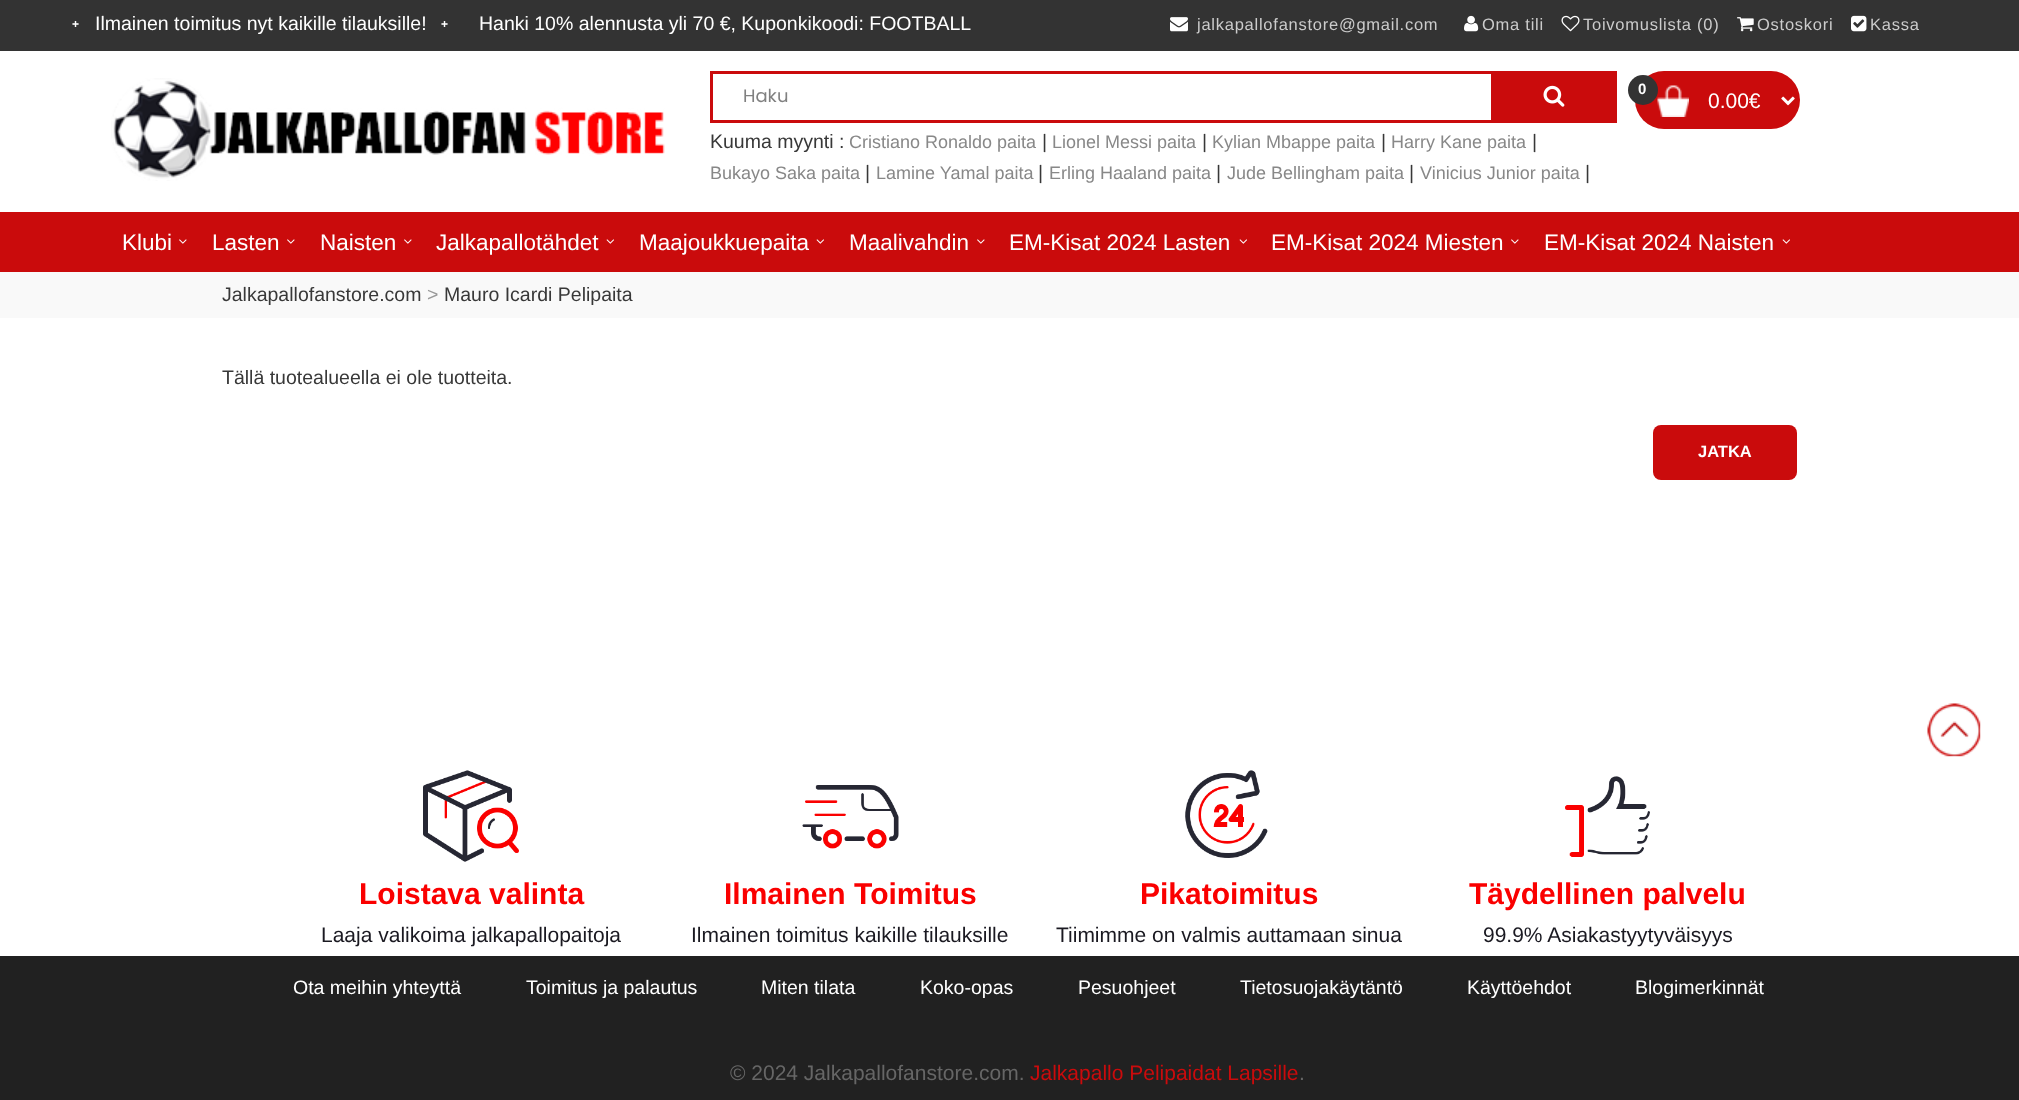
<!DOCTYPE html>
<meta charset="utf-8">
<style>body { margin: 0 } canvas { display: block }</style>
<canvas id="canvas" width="2019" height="1100"></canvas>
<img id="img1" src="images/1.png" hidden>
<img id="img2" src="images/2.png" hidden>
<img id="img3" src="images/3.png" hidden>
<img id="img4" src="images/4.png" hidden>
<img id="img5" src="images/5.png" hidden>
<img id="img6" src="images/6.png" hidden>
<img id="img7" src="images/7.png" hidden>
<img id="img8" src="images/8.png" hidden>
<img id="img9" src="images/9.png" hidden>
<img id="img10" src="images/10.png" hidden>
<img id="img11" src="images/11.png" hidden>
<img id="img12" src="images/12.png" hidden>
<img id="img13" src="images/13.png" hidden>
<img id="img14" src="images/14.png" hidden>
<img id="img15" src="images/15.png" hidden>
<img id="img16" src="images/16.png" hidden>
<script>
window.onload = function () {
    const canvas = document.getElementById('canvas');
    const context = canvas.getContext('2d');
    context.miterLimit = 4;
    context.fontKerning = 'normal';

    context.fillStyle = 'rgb(255, 255, 255)';
    context.fillRect(0, 0, 2019, 1100);
    context.fillStyle = 'rgb(51, 51, 51)';
    context.fillRect(0, 0, 2019, 51);
    context.drawImage(document.getElementById('img1'), 1170, 17, 18, 15);
    context.drawImage(document.getElementById('img2'), 1464, 15, 15, 17);
    context.drawImage(document.getElementById('img3'), 1561, 15, 19, 17);
    context.drawImage(document.getElementById('img4'), 1737, 17, 17, 15);
    context.drawImage(document.getElementById('img5'), 1851, 15, 16, 17);
    context.drawImage(document.getElementById('img6'), 111, 78, 554, 103);
    context.strokeStyle = 'rgb(202, 11, 12)';
    context.lineWidth = 3;
    context.strokeRect(711.5, 72.5, 904, 49);
    context.fillStyle = 'rgb(202, 11, 12)';
    context.fillRect(1491, 74, 123, 46);
    context.drawImage(document.getElementById('img7'), 1543, 85, 22, 22);
    context.beginPath();
    context.roundRect(1635, 71, 165, 58, 29);
    context.fill();
    context.drawImage(document.getElementById('img8'), 1657, 85, 32, 32);
    context.fillStyle = 'rgb(51, 51, 51)';
    context.beginPath();
    context.arc(1643, 90, 15, 0, 2 * Math.PI);
    context.fill();
    context.drawImage(document.getElementById('img9'), 1781, 96, 14, 10);
    context.fillStyle = 'rgb(202, 11, 12)';
    context.fillRect(0, 212, 2019, 60);
    context.drawImage(document.getElementById('img10'), 179, 239, 8, 5);
    context.drawImage(document.getElementById('img10'), 287, 239, 8, 5);
    context.drawImage(document.getElementById('img10'), 404, 239, 8, 5);
    context.drawImage(document.getElementById('img11'), 606, 239, 8, 5);
    context.drawImage(document.getElementById('img11'), 816, 239, 8, 5);
    context.drawImage(document.getElementById('img10'), 977, 239, 8, 5);
    context.drawImage(document.getElementById('img11'), 1239, 239, 8, 5);
    context.drawImage(document.getElementById('img10'), 1511, 239, 8, 5);
    context.drawImage(document.getElementById('img11'), 1782, 239, 8, 5);
    context.fillStyle = 'rgb(249, 249, 249)';
    context.fillRect(0, 272, 2019, 46);
    context.fillStyle = 'rgb(202, 11, 12)';
    context.beginPath();
    context.roundRect(1653, 425, 144, 55, 8);
    context.fill();
    context.drawImage(document.getElementById('img12'), 423, 770, 96, 92);
    context.drawImage(document.getElementById('img13'), 802, 785, 97, 64);
    context.drawImage(document.getElementById('img14'), 1185, 770, 83, 88);
    context.drawImage(document.getElementById('img15'), 1565, 776, 85, 81);
    context.fillStyle = 'rgb(33, 33, 33)';
    context.fillRect(0, 956, 2019, 144);
    context.drawImage(document.getElementById('img16'), 1927, 703, 54, 54);
    context.font = 'bold 12px Liberation Sans';
    context.fillStyle = 'rgb(255, 255, 255)';
    context.fillText('+', 72, 28);
    context.font = '19.5px Liberation Sans';
    context.fillText('Ilmainen toimitus nyt kaikille tilauksille!', 95, 30);
    context.font = 'bold 12px Liberation Sans';
    context.fillText('+', 441, 28);
    context.font = '19.5px Liberation Sans';
    context.fillText('Hanki 10% alennusta yli 70 €, Kuponkikoodi: FOOTBALL', 479, 30);
    context.letterSpacing = '0.75px';
    context.font = '16.5px Liberation Sans';
    context.fillStyle = 'rgb(204, 204, 204)';
    context.fillText('jalkapallofanstore@gmail.com', 1197, 30);
    context.fillText('Oma tili', 1482, 30);
    context.fillText('Toivomuslista (0)', 1583, 30);
    context.fillText('Ostoskori', 1757, 30);
    context.fillText('Kassa', 1870, 30);
    context.letterSpacing = '0px';
    context.font = '18px Poppins';
    context.fillStyle = 'rgb(128, 128, 128)';
    context.fillText('Haku', 743, 102);
    context.font = '19.5px Liberation Sans';
    context.fillStyle = 'rgb(56, 56, 56)';
    context.fillText('Kuuma myynti :', 710, 148);
    context.font = '18px Liberation Sans';
    context.fillStyle = 'rgb(136, 136, 136)';
    context.fillText('Cristiano Ronaldo paita', 849, 148);
    context.font = '19.5px Liberation Sans';
    context.fillStyle = 'rgb(56, 56, 56)';
    context.fillText('|', 1042, 148);
    context.font = '18px Liberation Sans';
    context.fillStyle = 'rgb(136, 136, 136)';
    context.fillText('Lionel Messi paita', 1052, 148);
    context.font = '19.5px Liberation Sans';
    context.fillStyle = 'rgb(56, 56, 56)';
    context.fillText('|', 1202, 148);
    context.font = '18px Liberation Sans';
    context.fillStyle = 'rgb(136, 136, 136)';
    context.fillText('Kylian Mbappe paita', 1212, 148);
    context.font = '19.5px Liberation Sans';
    context.fillStyle = 'rgb(56, 56, 56)';
    context.fillText('|', 1381, 148);
    context.font = '18px Liberation Sans';
    context.fillStyle = 'rgb(136, 136, 136)';
    context.fillText('Harry Kane paita', 1391, 148);
    context.font = '19.5px Liberation Sans';
    context.fillStyle = 'rgb(56, 56, 56)';
    context.fillText('|', 1532, 148);
    context.font = '18px Liberation Sans';
    context.fillStyle = 'rgb(136, 136, 136)';
    context.fillText('Bukayo Saka paita', 710, 179);
    context.font = '19.5px Liberation Sans';
    context.fillStyle = 'rgb(56, 56, 56)';
    context.fillText('|', 865, 179);
    context.font = '18px Liberation Sans';
    context.fillStyle = 'rgb(136, 136, 136)';
    context.fillText('Lamine Yamal paita', 876, 179);
    context.font = '19.5px Liberation Sans';
    context.fillStyle = 'rgb(56, 56, 56)';
    context.fillText('|', 1038, 179);
    context.font = '18px Liberation Sans';
    context.fillStyle = 'rgb(136, 136, 136)';
    context.fillText('Erling Haaland paita', 1049, 179);
    context.font = '19.5px Liberation Sans';
    context.fillStyle = 'rgb(56, 56, 56)';
    context.fillText('|', 1216, 179);
    context.font = '18px Liberation Sans';
    context.fillStyle = 'rgb(136, 136, 136)';
    context.fillText('Jude Bellingham paita', 1227, 179);
    context.font = '19.5px Liberation Sans';
    context.fillStyle = 'rgb(56, 56, 56)';
    context.fillText('|', 1409, 179);
    context.font = '18px Liberation Sans';
    context.fillStyle = 'rgb(136, 136, 136)';
    context.fillText('Vinicius Junior paita', 1420, 179);
    context.font = '19.5px Liberation Sans';
    context.fillStyle = 'rgb(56, 56, 56)';
    context.fillText('|', 1585, 179);
    context.font = 'bold 15px Liberation Sans';
    context.fillStyle = 'rgb(255, 255, 255)';
    context.fillText('0', 1638, 94);
    context.font = '21px Liberation Sans';
    context.fillText('0.00€', 1708, 108);
    context.font = '22.5px Liberation Sans';
    context.fillText('Klubi', 122, 250);
    context.fillText('Lasten', 212, 250);
    context.fillText('Naisten', 320, 250);
    context.fillText('Jalkapallotähdet', 436, 250);
    context.fillText('Maajoukkuepaita', 639, 250);
    context.fillText('Maalivahdin', 849, 250);
    context.fillText('EM-Kisat 2024 Lasten', 1009, 250);
    context.fillText('EM-Kisat 2024 Miesten', 1271, 250);
    context.fillText('EM-Kisat 2024 Naisten', 1544, 250);
    context.font = '19.5px Liberation Sans';
    context.fillStyle = 'rgb(56, 56, 56)';
    context.fillText('Jalkapallofanstore.com', 222, 301);
    context.fillStyle = 'rgb(153, 153, 153)';
    context.fillText('>', 427, 301);
    context.fillStyle = 'rgb(56, 56, 56)';
    context.fillText('Mauro Icardi Pelipaita', 444, 301);
    context.fillText('Tällä tuotealueella ei ole tuotteita.', 222, 384);
    context.font = 'bold 16.5px Liberation Sans';
    context.fillStyle = 'rgb(255, 255, 255)';
    context.fillText('JATKA', 1698, 457);
    context.font = 'bold 30px Liberation Sans';
    context.fillStyle = 'rgb(250, 0, 0)';
    context.fillText('Loistava valinta', 359, 904);
    context.font = '21px Liberation Sans';
    context.fillStyle = 'rgb(26, 25, 33)';
    context.fillText('Laaja valikoima jalkapallopaitoja', 321, 942);
    context.font = 'bold 30px Liberation Sans';
    context.fillStyle = 'rgb(250, 0, 0)';
    context.fillText('Ilmainen Toimitus', 724, 904);
    context.font = '21px Liberation Sans';
    context.fillStyle = 'rgb(26, 25, 33)';
    context.fillText('Ilmainen toimitus kaikille tilauksille', 691, 942);
    context.font = 'bold 30px Liberation Sans';
    context.fillStyle = 'rgb(250, 0, 0)';
    context.fillText('Pikatoimitus', 1140, 904);
    context.font = '21px Liberation Sans';
    context.fillStyle = 'rgb(26, 25, 33)';
    context.fillText('Tiimimme on valmis auttamaan sinua', 1056, 942);
    context.font = 'bold 30px Liberation Sans';
    context.fillStyle = 'rgb(250, 0, 0)';
    context.fillText('Täydellinen palvelu', 1469, 904);
    context.font = '21px Liberation Sans';
    context.fillStyle = 'rgb(26, 25, 33)';
    context.fillText('99.9% Asiakastyytyväisyys', 1483, 942);
    context.font = '19.5px Liberation Sans';
    context.fillStyle = 'rgb(255, 255, 255)';
    context.fillText('Ota meihin yhteyttä', 293, 994);
    context.fillText('Toimitus ja palautus', 526, 994);
    context.fillText('Miten tilata', 761, 994);
    context.fillText('Koko-opas', 920, 994);
    context.fillText('Pesuohjeet', 1078, 994);
    context.fillText('Tietosuojakäytäntö', 1240, 994);
    context.fillText('Käyttöehdot', 1467, 994);
    context.fillText('Blogimerkinnät', 1635, 994);
    context.font = '21px Liberation Sans';
    context.fillStyle = 'rgb(102, 102, 102)';
    context.fillText('© 2024 Jalkapallofanstore.com.', 730, 1080);
    context.fillStyle = 'rgb(202, 11, 12)';
    context.fillText('Jalkapallo Pelipaidat Lapsille', 1030, 1080);
    context.fillStyle = 'rgb(102, 102, 102)';
    context.fillText('.', 1299, 1080);
};
</script>
